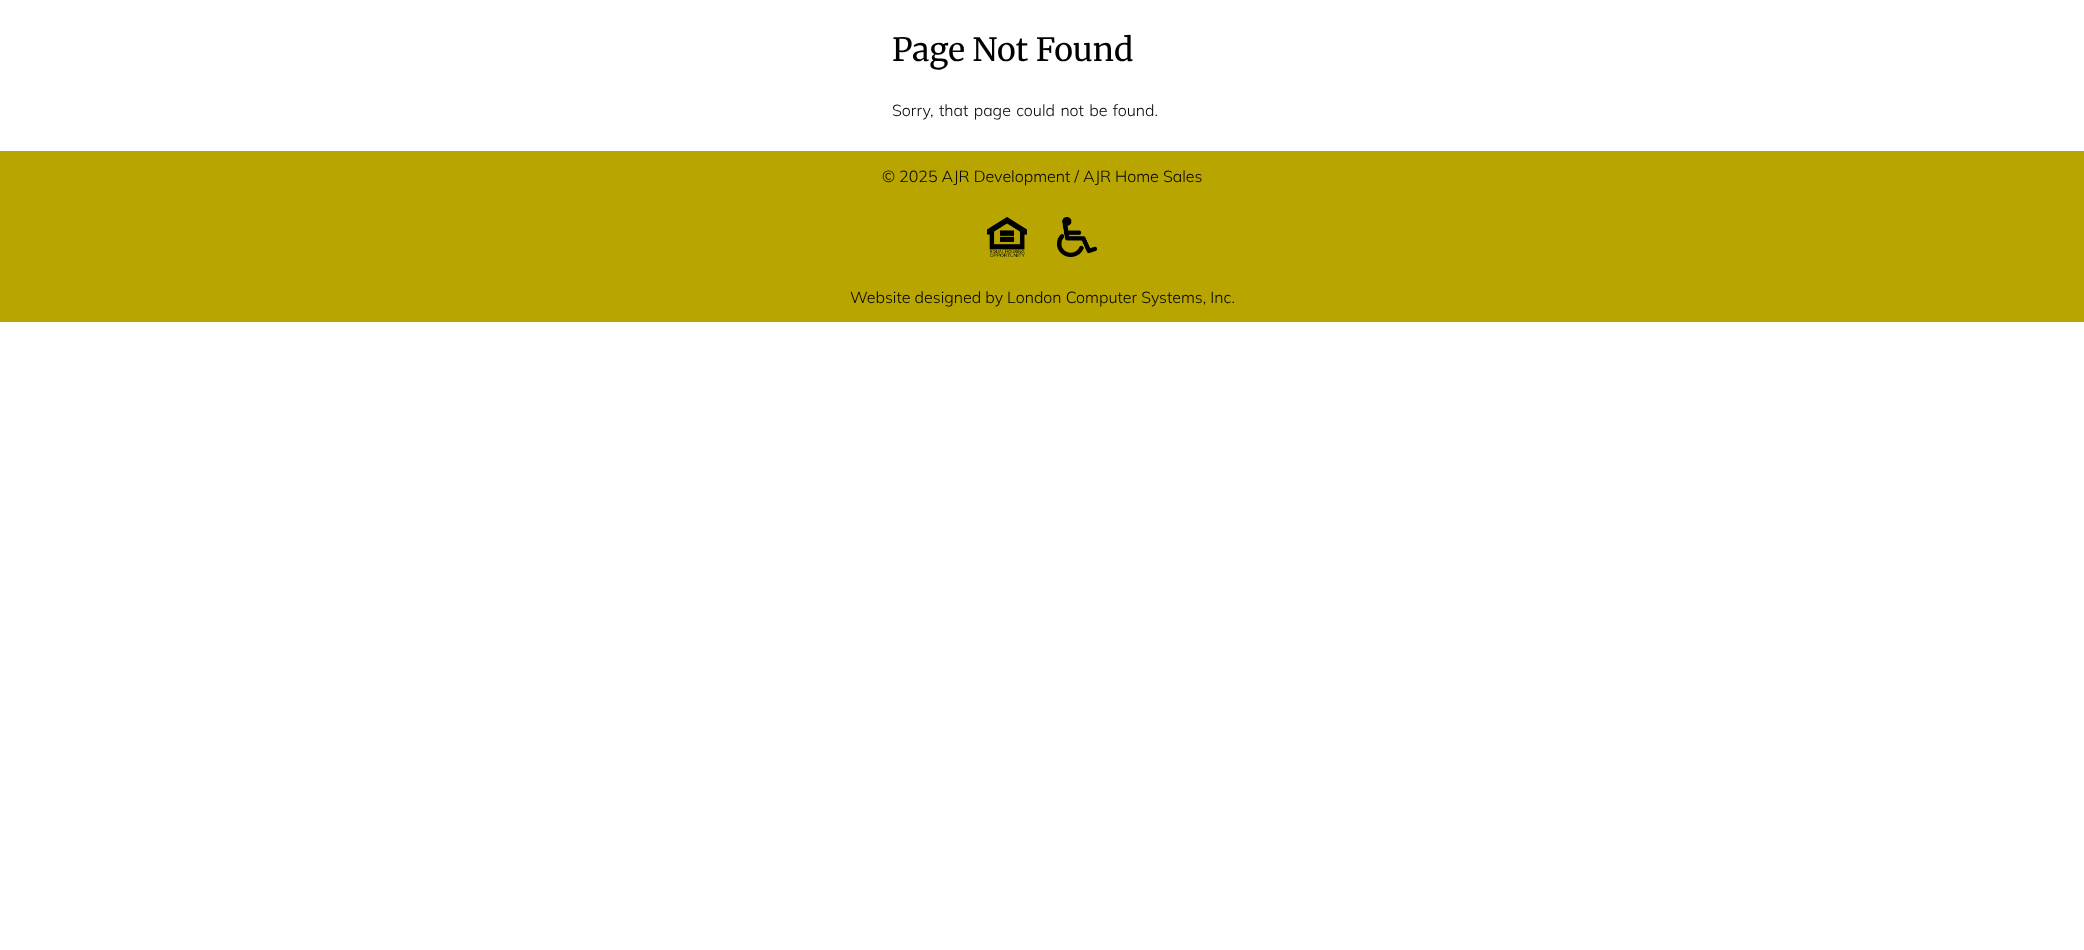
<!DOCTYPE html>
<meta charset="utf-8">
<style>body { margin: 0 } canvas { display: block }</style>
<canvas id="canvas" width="2084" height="950"></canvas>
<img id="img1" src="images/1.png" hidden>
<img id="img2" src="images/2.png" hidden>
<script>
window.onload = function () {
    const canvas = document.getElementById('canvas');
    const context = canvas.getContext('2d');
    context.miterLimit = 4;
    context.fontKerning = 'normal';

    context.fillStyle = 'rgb(255, 255, 255)';
    context.fillRect(0, 0, 2084, 950);
    context.fillStyle = 'rgb(185, 165, 0)';
    context.fillRect(0, 151, 2084, 171);
    context.drawImage(document.getElementById('img1'), 987, 217, 40, 40);
    context.drawImage(document.getElementById('img2'), 1057, 217, 40, 40);
    context.font = '300 32px Merriweather';
    context.fillStyle = 'rgb(0, 0, 0)';
    context.fillText('Page Not Found', 892, 61);
    context.wordSpacing = '1.25px';
    context.font = '300 16px Mulish';
    context.fillText('Sorry, that page could not be found.', 892, 116);
    context.wordSpacing = '0px';
    context.fillText('© 2025 AJR Development / AJR Home Sales', 882, 182);
    context.fillText('Website designed by London Computer Systems, Inc.', 850, 303);
};
</script>
